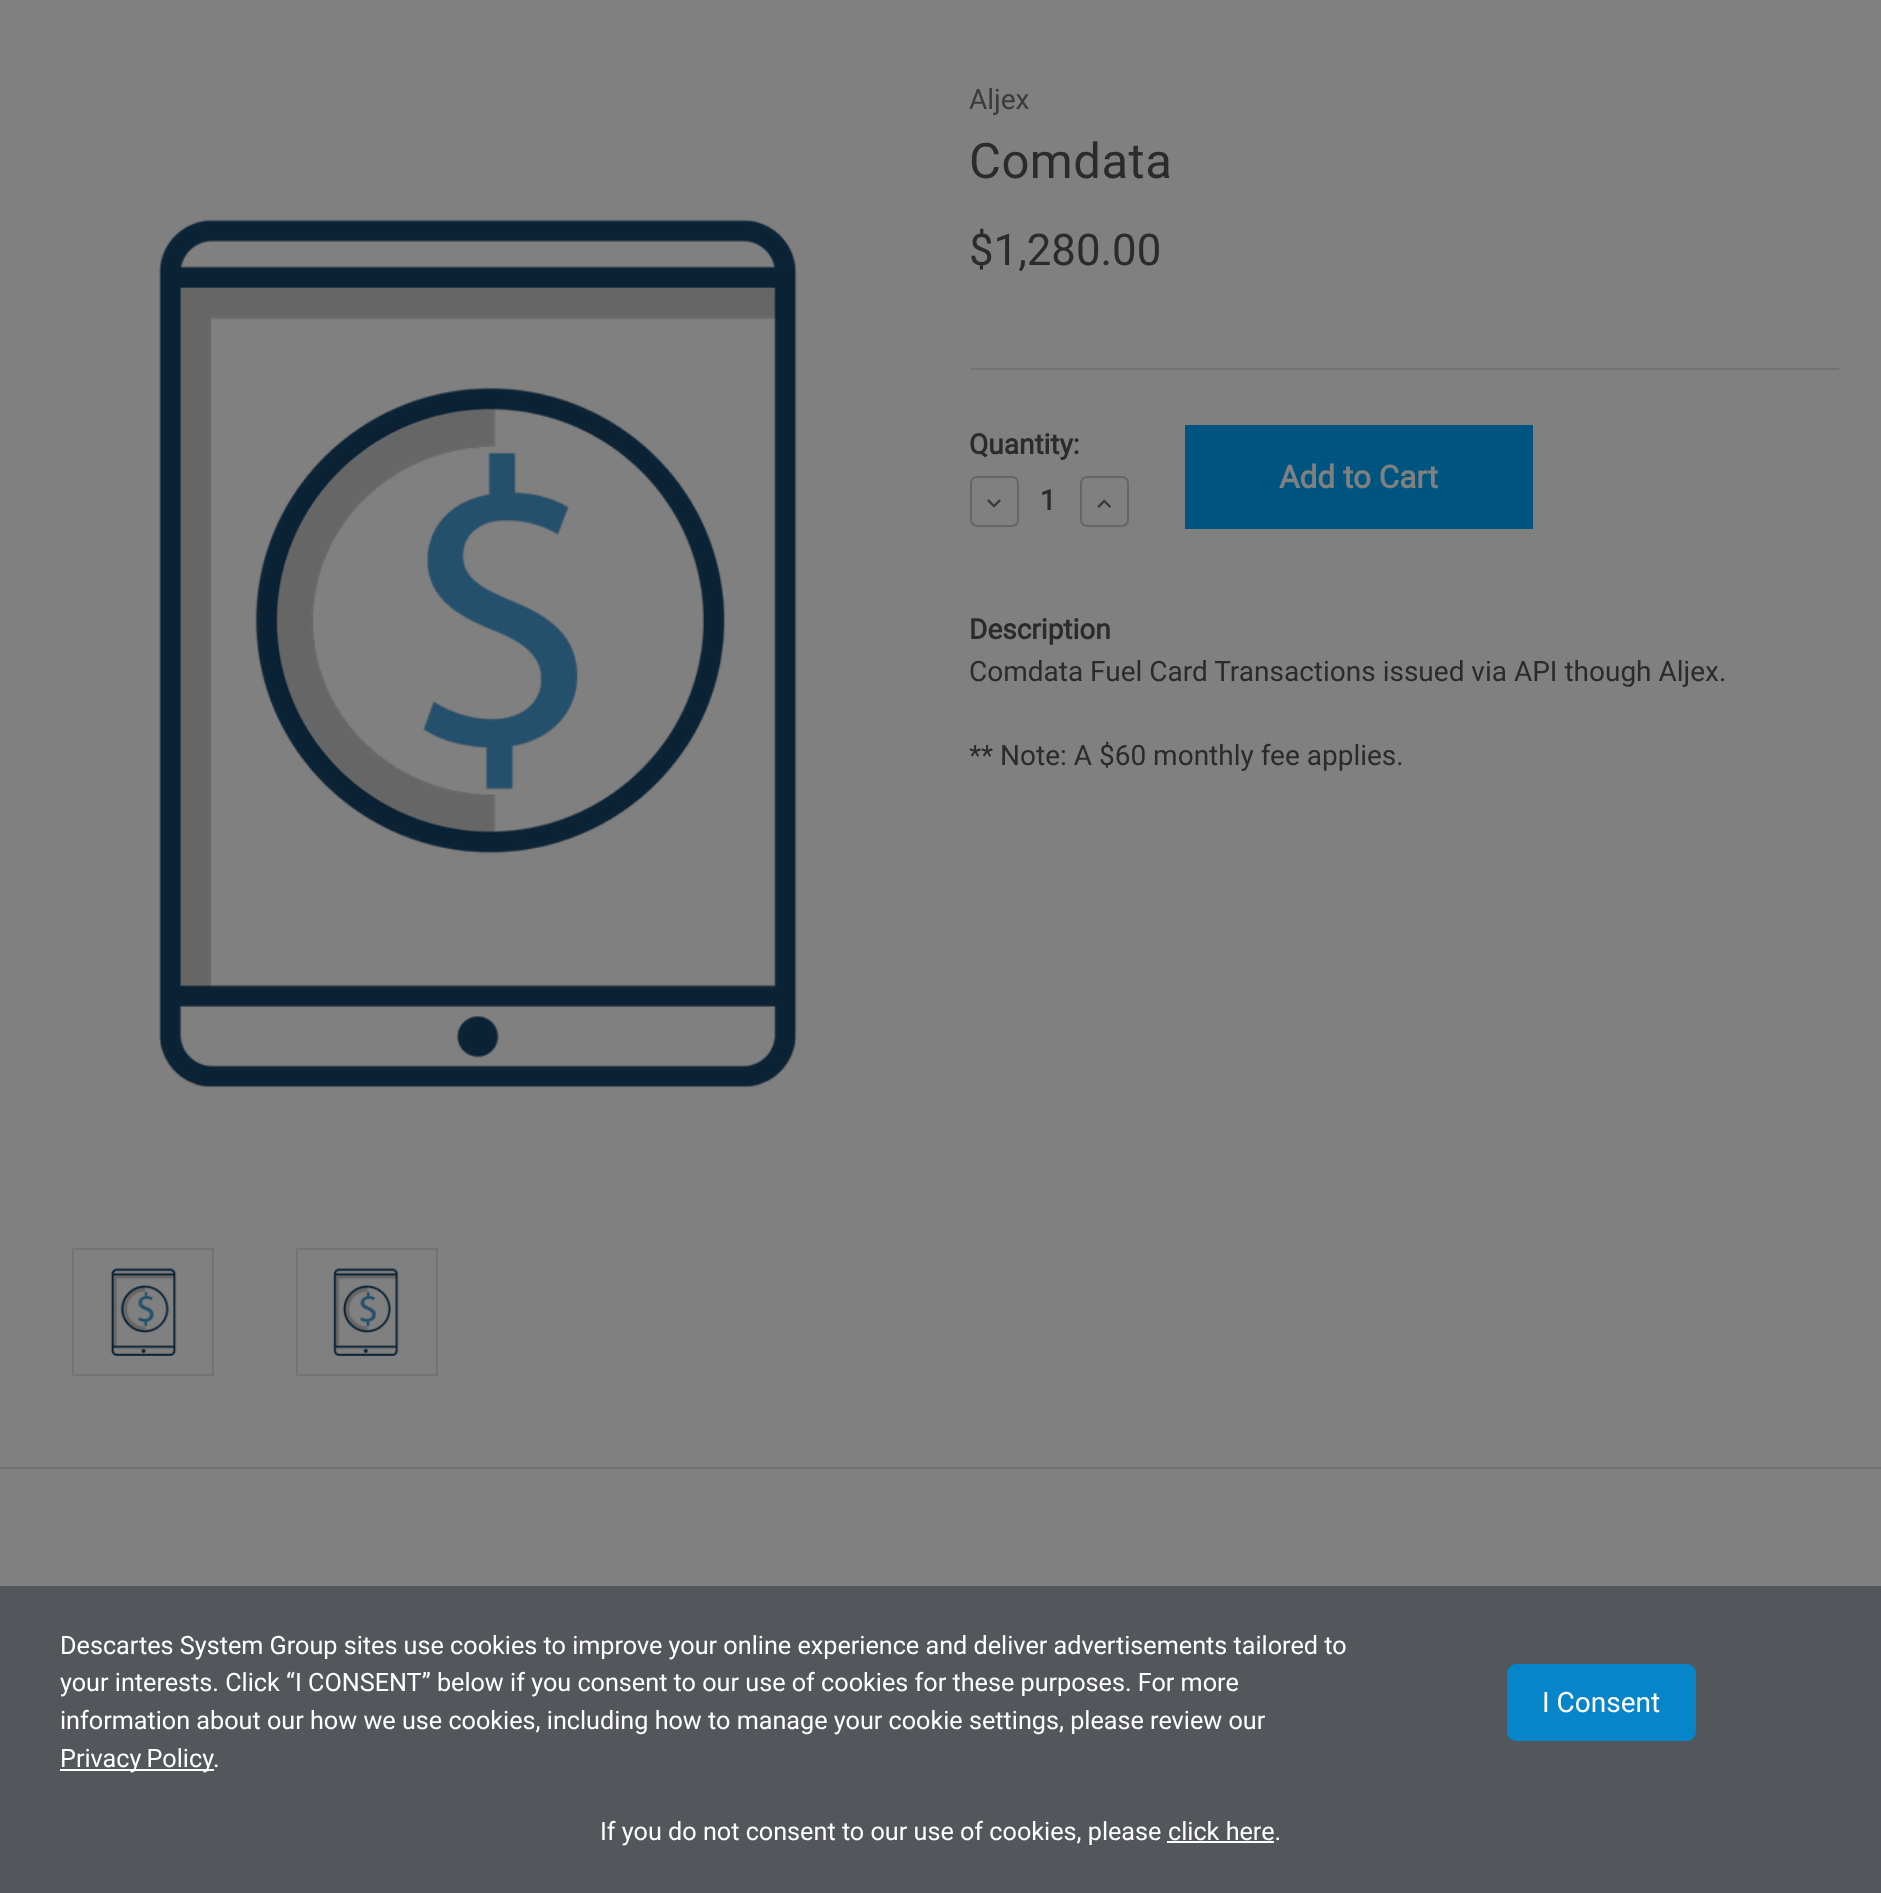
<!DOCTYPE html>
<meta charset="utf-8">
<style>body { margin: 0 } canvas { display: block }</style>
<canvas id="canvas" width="1881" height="1893"></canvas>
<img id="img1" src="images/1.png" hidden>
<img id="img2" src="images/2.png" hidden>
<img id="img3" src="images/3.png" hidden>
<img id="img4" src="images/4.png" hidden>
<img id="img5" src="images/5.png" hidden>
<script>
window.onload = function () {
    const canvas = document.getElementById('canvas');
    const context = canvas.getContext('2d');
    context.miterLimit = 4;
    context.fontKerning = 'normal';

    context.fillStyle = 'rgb(128, 128, 128)';
    context.fillRect(0, 0, 1881, 1893);
    context.fillStyle = 'rgb(115, 115, 115)';
    context.fillRect(970, 368, 869, 2);
    context.drawImage(document.getElementById('img1'), 159, 219, 638, 869);
    context.strokeStyle = 'rgb(115, 115, 115)';
    context.lineWidth = 2;
    context.strokeRect(73, 1249, 140, 126);
    context.drawImage(document.getElementById('img2'), 110, 1268, 67, 88);
    context.strokeRect(297, 1249, 140, 126);
    context.drawImage(document.getElementById('img3'), 333, 1268, 66, 88);
    context.beginPath();
    context.roundRect(971, 477, 47, 49, 6);
    context.strokeStyle = 'rgb(102, 102, 102)';
    context.stroke();
    context.drawImage(document.getElementById('img4'), 987, 499, 14, 9);
    context.beginPath();
    context.roundRect(1081, 477, 47, 49, 6);
    context.stroke();
    context.drawImage(document.getElementById('img5'), 1097, 499, 15, 9);
    context.fillStyle = 'rgb(0, 85, 128)';
    context.fillRect(1185, 425, 348, 104);
    context.fillStyle = 'rgb(115, 115, 115)';
    context.fillRect(0, 1467, 1881, 2);
    context.fillStyle = 'rgb(83, 86, 90)';
    context.fillRect(0, 1586, 1881, 307);
    context.fillStyle = 'rgb(255, 255, 255)';
    context.fillRect(60, 1769, 154, 2);
    context.fillStyle = 'rgb(6, 133, 202)';
    context.beginPath();
    context.roundRect(1507, 1664, 189, 77, 9);
    context.fill();
    context.fillStyle = 'rgb(255, 255, 255)';
    context.fillRect(1167, 1841, 107, 2);
    context.font = '28px Roboto';
    context.fillStyle = 'rgb(59, 59, 59)';
    context.fillText('Aljex', 969, 109);
    context.letterSpacing = '0.5px';
    context.font = '49px Roboto';
    context.fillStyle = 'rgb(42, 43, 45)';
    context.fillText('Comdata', 969, 178);
    context.letterSpacing = '0px';
    context.font = '43.75px Roboto';
    context.fillText('$1,280.00', 969, 265);
    context.font = 'bold 28px Roboto';
    context.fillText('Quantity:', 969, 454);
    context.fillText('1', 1040, 510);
    context.font = 'bold 31.5px Roboto';
    context.fillStyle = 'rgb(128, 128, 128)';
    context.fillText('Add to Cart', 1279, 488);
    context.font = 'bold 28px Roboto';
    context.fillStyle = 'rgb(42, 43, 45)';
    context.fillText('Description', 969, 639);
    context.font = '28px Roboto';
    context.fillText('Comdata Fuel Card Transactions issued via API though Aljex.', 969, 681);
    context.fillText('** Note: A $60 monthly fee applies.', 969, 765);
    context.font = '25.2px Roboto';
    context.fillStyle = 'rgb(255, 255, 255)';
    context.fillText('Descartes System Group sites use cookies to improve your online experience and deliver advertisements tailored to', 60, 1654);
    context.fillText('your interests. Click “I CONSENT” below if you consent to our use of cookies for these purposes. For more', 60, 1691);
    context.fillText('information about our how we use cookies, including how to manage your cookie settings, please review our', 60, 1729);
    context.wordSpacing = '-1px';
    context.fillText('Privacy Policy', 60, 1767);
    context.wordSpacing = '0px';
    context.fillText('.', 213, 1767);
    context.font = '28px Roboto';
    context.fillText('I Consent', 1542, 1712);
    context.font = '25.2px Roboto';
    context.fillText('If you do not consent to our use of cookies, please', 600, 1840);
    context.fillText('click here.', 1168, 1840);
};
</script>
